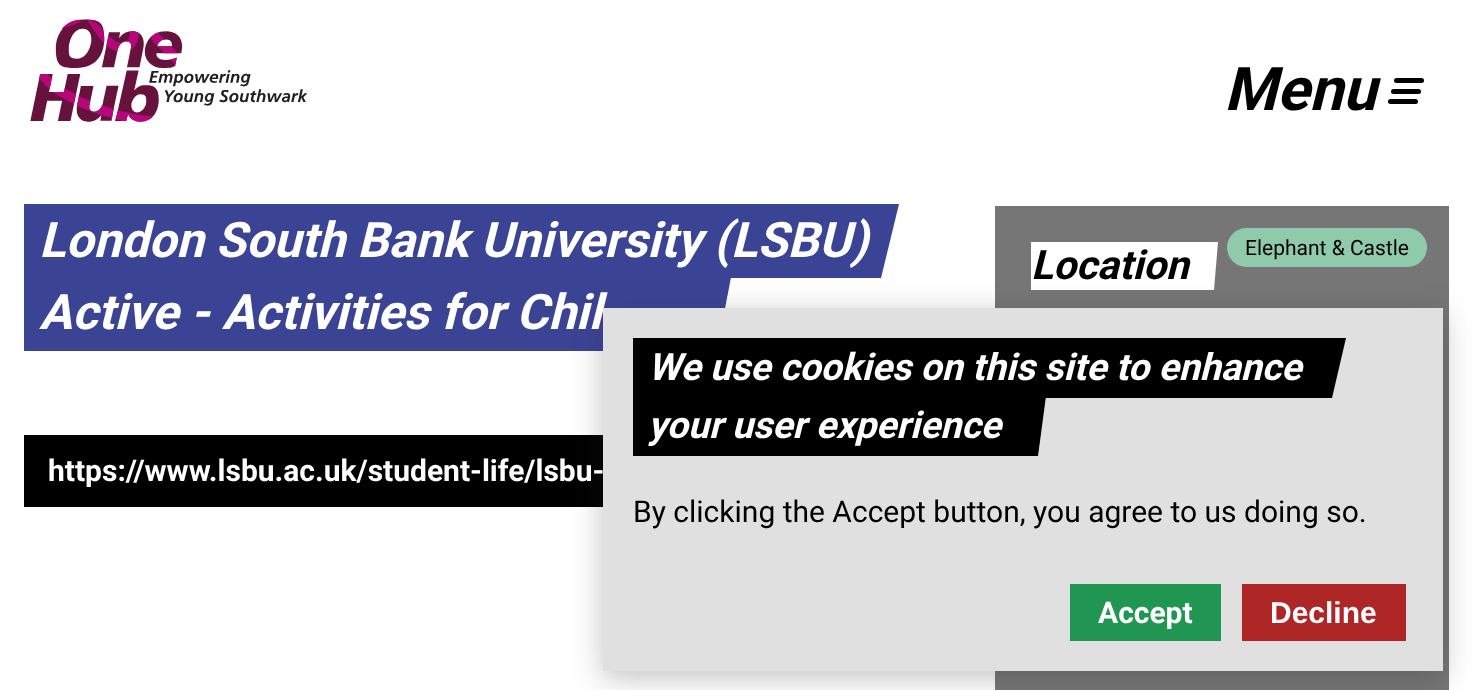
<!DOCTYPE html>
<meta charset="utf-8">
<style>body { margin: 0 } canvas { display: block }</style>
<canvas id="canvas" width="1472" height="690"></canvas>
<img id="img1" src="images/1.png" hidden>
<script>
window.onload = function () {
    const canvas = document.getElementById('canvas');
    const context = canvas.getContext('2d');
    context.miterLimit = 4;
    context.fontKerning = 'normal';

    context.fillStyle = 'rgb(255, 255, 255)';
    context.fillRect(0, 0, 1472, 690);
    context.drawImage(document.getElementById('img1'), 30, 19, 278, 103);
    context.fillStyle = 'rgb(0, 0, 0)';
    context.beginPath();
    context.roundRect(1394, 78, 30, 5, 2.5);
    context.fill();
    context.beginPath();
    context.roundRect(1391, 89, 30, 5, 2.5);
    context.fill();
    context.beginPath();
    context.roundRect(1388, 99, 30, 5, 2.5);
    context.fill();
    context.fillStyle = 'rgb(59, 67, 149)';
    context.beginPath();
    context.moveTo(24, 204);
    context.lineTo(24, 278);
    context.lineTo(881, 278);
    context.lineTo(899, 204);
    context.closePath();
    context.fill();
    context.beginPath();
    context.moveTo(24, 277);
    context.lineTo(24, 351);
    context.lineTo(717, 351);
    context.lineTo(731, 277);
    context.closePath();
    context.fill();
    context.fillStyle = 'rgb(118, 118, 118)';
    context.fillRect(995, 206, 454, 484);
    context.fillStyle = 'rgb(255, 255, 255)';
    context.beginPath();
    context.moveTo(1031, 242);
    context.lineTo(1218, 242);
    context.lineTo(1214, 290);
    context.lineTo(1031, 290);
    context.closePath();
    context.fill();
    context.fillStyle = 'rgb(143, 202, 170)';
    context.beginPath();
    context.roundRect(1227, 228, 200, 39, 19.5);
    context.fill();
    context.fillStyle = 'rgb(0, 0, 0)';
    context.fillRect(24, 435, 579, 72);
    context.fillStyle = 'rgba(51, 51, 51, 0.3)';
    context.filter = 'blur(15px)';
    context.beginPath();
    context.rect(603, 315, 840, 363);
    context.fill();
    context.filter = 'none';
    context.font = 'italic bold 60px Roboto';
    context.fillStyle = 'rgb(0, 0, 0)';
    context.fillText('Menu', 1224, 110);
    context.font = 'italic bold 49px Roboto';
    context.fillStyle = 'rgb(255, 255, 255)';
    context.fillText('London South Bank University (LSBU)', 39, 257);
    context.fillText('Active - Activities for Chil', 39, 329);
    context.font = 'italic bold 40.5px Roboto';
    context.fillStyle = 'rgb(0, 0, 0)';
    context.fillText('Location', 1031, 279);
    context.font = '21px Roboto';
    context.fillText('Elephant & Castle', 1245, 255);
    context.font = 'bold 30px Roboto';
    context.fillStyle = 'rgb(255, 255, 255)';
    context.fillText('https://www.lsbu.ac.uk/student-life/lsbu-', 48, 481);
    context.fillStyle = 'rgb(224, 224, 224)';
    context.fillRect(603, 308, 840, 363);
    context.fillStyle = 'rgb(0, 0, 0)';
    context.beginPath();
    context.moveTo(633, 338);
    context.lineTo(633, 398);
    context.lineTo(1332, 398);
    context.lineTo(1346, 338);
    context.closePath();
    context.fill();
    context.font = 'italic bold 37.5px Roboto';
    context.fillStyle = 'rgb(255, 255, 255)';
    context.fillText('We use cookies on this site to enhance', 648, 380);
    context.fillStyle = 'rgb(0, 0, 0)';
    context.beginPath();
    context.moveTo(633, 396);
    context.lineTo(633, 456);
    context.lineTo(1038, 456);
    context.lineTo(1046, 396);
    context.closePath();
    context.fill();
    context.fillStyle = 'rgb(255, 255, 255)';
    context.fillText('your user experience', 648, 438);
    context.font = '30px Roboto';
    context.fillStyle = 'rgb(0, 0, 0)';
    context.fillText('By clicking the Accept button, you agree to us doing so.', 633, 522);
    context.fillStyle = 'rgb(33, 150, 83)';
    context.fillRect(1070, 584, 151, 57);
    context.font = 'bold 30px Roboto';
    context.fillStyle = 'rgb(255, 255, 255)';
    context.fillText('Accept', 1098, 623);
    context.fillStyle = 'rgb(174, 38, 38)';
    context.fillRect(1242, 584, 164, 57);
    context.font = 'bold 30px Liberation Sans';
    context.fillStyle = 'rgb(255, 255, 255)';
    context.fillText('Decline', 1270, 623);
};
</script>
